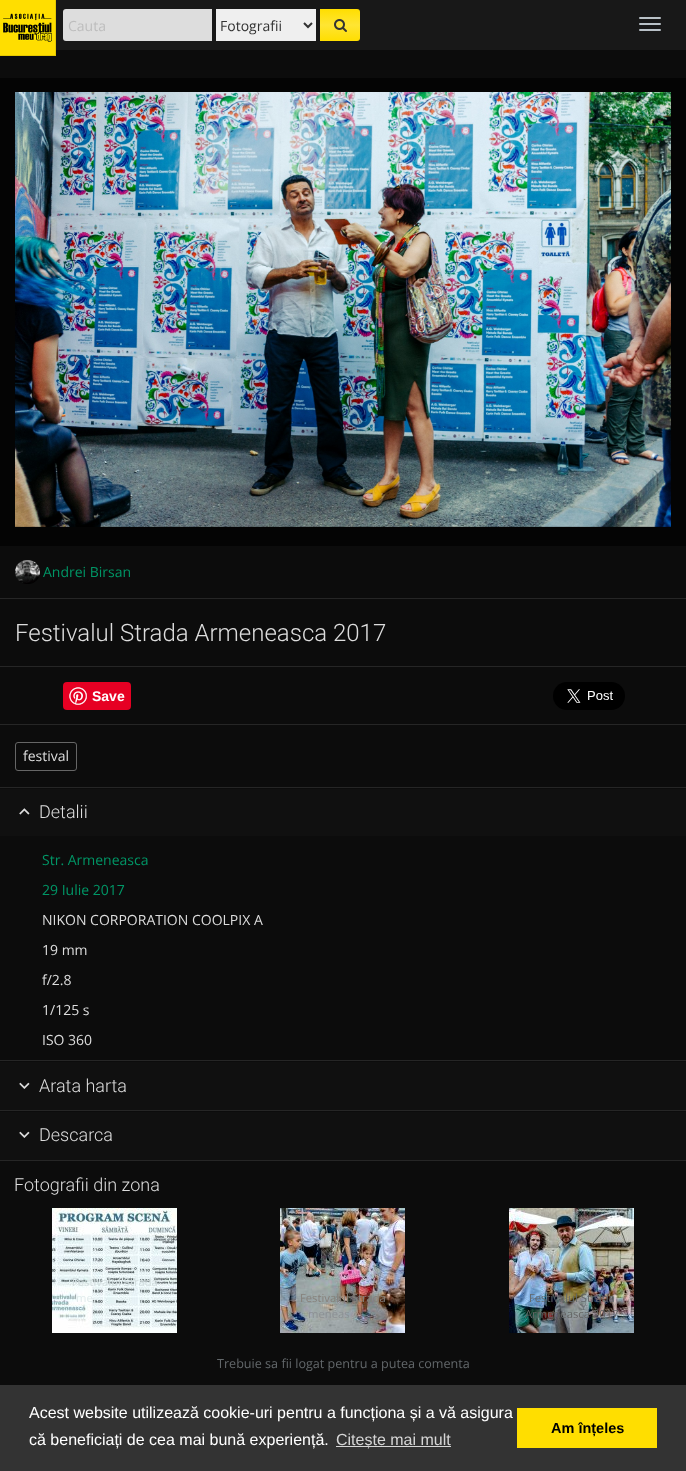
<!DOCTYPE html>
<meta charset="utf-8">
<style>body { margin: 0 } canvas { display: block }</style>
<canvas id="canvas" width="686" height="1471"></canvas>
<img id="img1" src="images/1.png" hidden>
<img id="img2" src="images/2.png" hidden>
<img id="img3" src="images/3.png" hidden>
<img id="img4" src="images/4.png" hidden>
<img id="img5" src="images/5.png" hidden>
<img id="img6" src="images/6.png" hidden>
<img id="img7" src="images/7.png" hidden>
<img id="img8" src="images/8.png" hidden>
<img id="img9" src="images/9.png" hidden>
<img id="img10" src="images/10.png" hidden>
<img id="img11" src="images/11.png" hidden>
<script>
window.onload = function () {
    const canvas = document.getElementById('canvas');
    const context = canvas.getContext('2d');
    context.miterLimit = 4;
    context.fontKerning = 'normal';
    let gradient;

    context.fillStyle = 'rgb(12, 12, 12)';
    context.fillRect(0, 0, 686, 1471);
    context.fillStyle = 'rgb(24, 24, 24)';
    context.fillRect(56, 0, 630, 50);
    context.fillStyle = 'rgb(255, 222, 0)';
    context.fillRect(0, 0, 55, 55);
    context.drawImage(document.getElementById('img1'), 2, 13, 51, 29);
    context.fillStyle = 'rgb(230, 200, 0)';
    context.fillRect(55, 0, 1, 56);
    context.fillRect(0, 55, 56, 1);
    context.fillStyle = 'rgb(221, 221, 221)';
    context.beginPath();
    context.roundRect(63, 9, 149, 32, [3, 0, 0, 3]);
    context.fill();
    context.fillStyle = 'rgb(239, 239, 239)';
    context.fillRect(216, 9, 100, 32);
    context.beginPath();
    context.moveTo(304, 23);
    context.lineTo(308, 27);
    context.lineTo(312, 23);
    context.strokeStyle = 'rgb(51, 51, 51)';
    context.lineWidth = 2;
    context.stroke();
    gradient = context.createLinearGradient(340, 9, 340, 41);
    gradient.addColorStop(0, 'rgb(255, 222, 0)');
    gradient.addColorStop(0.5, 'rgb(255, 229, 51)');
    gradient.addColorStop(1, 'rgb(255, 222, 0)');
    context.fillStyle = gradient;
    context.beginPath();
    context.roundRect(320, 9, 40, 32, [0, 3, 3, 0]);
    context.fill();
    context.drawImage(document.getElementById('img2'), 334, 19, 13, 13);
    context.fillStyle = 'rgb(185, 193, 199)';
    context.beginPath();
    context.roundRect(639, 17, 22, 2, 1);
    context.fill();
    context.beginPath();
    context.roundRect(639, 23, 22, 2, 1);
    context.fill();
    context.beginPath();
    context.roundRect(639, 29, 22, 2, 1);
    context.fill();
    context.fillStyle = 'rgb(4, 4, 4)';
    context.fillRect(0, 78, 686, 468);
    context.drawImage(document.getElementById('img3'), 15, 92, 656, 435);
    context.drawImage(document.getElementById('img4'), 15, 560, 25, 24);
    context.fillStyle = 'rgb(38, 38, 38)';
    context.fillRect(0, 598, 686, 1);
    context.fillRect(0, 666, 686, 1);
    context.fillStyle = 'rgb(230, 0, 35)';
    context.beginPath();
    context.roundRect(63, 682, 68, 28, 4);
    context.fill();
    context.drawImage(document.getElementById('img5'), 69, 687, 18, 18);
    context.drawImage(document.getElementById('img6'), 553, 682, 72, 28);
    context.fillStyle = 'rgb(38, 38, 38)';
    context.fillRect(0, 724, 686, 1);
    context.beginPath();
    context.roundRect(15.5, 742.5, 61, 28, 2.5);
    context.strokeStyle = 'rgb(102, 102, 102)';
    context.lineWidth = 1;
    context.stroke();
    context.fillRect(0, 787, 686, 1);
    context.fillStyle = 'rgb(16, 16, 16)';
    context.fillRect(0, 789, 686, 47);
    context.drawImage(document.getElementById('img7'), 19, 808, 11, 7);
    context.fillStyle = 'rgb(38, 38, 38)';
    context.fillRect(0, 1060, 686, 1);
    context.fillStyle = 'rgb(16, 16, 16)';
    context.fillRect(0, 1062, 686, 48);
    context.drawImage(document.getElementById('img8'), 19, 1082, 11, 7);
    context.fillStyle = 'rgb(38, 38, 38)';
    context.fillRect(0, 1110, 686, 1);
    context.fillStyle = 'rgb(16, 16, 16)';
    context.fillRect(0, 1112, 686, 48);
    context.drawImage(document.getElementById('img8'), 19, 1131, 11, 7);
    context.fillStyle = 'rgb(38, 38, 38)';
    context.fillRect(0, 1160, 686, 1);
    context.drawImage(document.getElementById('img9'), 52, 1208, 125, 125);
    context.drawImage(document.getElementById('img10'), 280, 1208, 125, 125);
    context.drawImage(document.getElementById('img11'), 509, 1208, 125, 125);
    context.fillStyle = 'rgb(51, 51, 51)';
    context.fillRect(0, 1385, 686, 86);
    context.fillStyle = 'rgb(214, 214, 214)';
    context.fillRect(336, 1446, 115, 1);
    context.fillStyle = 'rgb(255, 222, 0)';
    context.fillRect(517, 1408, 140, 40);
    context.font = '14px Open Sans';
    context.fillStyle = 'rgb(189, 189, 189)';
    context.fillText('Cauta', 68, 31);
    context.fillStyle = 'rgb(51, 51, 51)';
    context.fillText('Fotografii', 220, 31);
    context.fillStyle = 'rgb(0, 150, 102)';
    context.fillText('Andrei Birsan', 43, 577);
    context.font = '300 24px Roboto';
    context.fillStyle = 'rgb(221, 221, 221)';
    context.fillText('Festivalul Strada Armeneasca 2017', 15, 641);
    context.font = 'bold 14px Liberation Sans';
    context.fillStyle = 'rgb(255, 255, 255)';
    context.fillText('Save', 92, 701);
    context.font = '14px Open Sans';
    context.fillStyle = 'rgb(221, 221, 221)';
    context.fillText('festival', 23, 761);
    context.font = '300 18px Roboto';
    context.fillText('Detalii', 39, 818);
    context.font = '14px Open Sans';
    context.fillStyle = 'rgb(0, 150, 102)';
    context.fillText('Str. Armeneasca', 42, 865);
    context.fillText('29 Iulie 2017', 42, 895);
    context.fillStyle = 'rgb(221, 221, 221)';
    context.fillText('NIKON CORPORATION COOLPIX A', 42, 925);
    context.fillText('19 mm', 42, 955);
    context.fillText('f/2.8', 42, 985);
    context.fillText('1/125 s', 42, 1015);
    context.fillText('ISO 360', 42, 1045);
    context.font = '300 18px Roboto';
    context.fillText('Arata harta', 39, 1092);
    context.fillText('Descarca', 39, 1141);
    context.fillText('Fotografii din zona', 14, 1191);
    context.font = '11.25px Open Sans';
    context.fillStyle = 'rgb(210, 221, 222)';
    context.fillText('Festivalul Strada', 72, 1286);
    context.fillStyle = 'rgb(224, 234, 235)';
    context.fillText('me', 76, 1302);
    context.fillStyle = 'rgb(134, 129, 123)';
    context.fillText('Festivalul Strada', 300, 1302);
    context.fillStyle = 'rgb(140, 144, 148)';
    context.fillText('meneas', 308, 1318);
    context.fillStyle = 'rgb(99, 104, 107)';
    context.fillText('Festivalul Strada', 529, 1302);
    context.fillStyle = 'rgb(101, 102, 101)';
    context.fillText('Armeneasca 2017', 525, 1318);
    context.font = '12.6px Open Sans';
    context.fillStyle = 'rgb(99, 104, 107)';
    context.fillText('Trebuie sa fii logat pentru a putea comenta', 217, 1368);
    context.font = '16px Liberation Sans';
    context.fillStyle = 'rgb(255, 255, 255)';
    context.fillText('Acest website utilizează cookie-uri pentru a funcționa și a vă asigura', 29, 1418);
    context.fillText('că beneficiați de cea mai bună experiență.', 29, 1445);
    context.fillStyle = 'rgb(214, 214, 214)';
    context.fillText('Citește mai mult', 336, 1445);
    context.font = 'bold 14.5px Liberation Sans';
    context.fillStyle = 'rgb(0, 0, 0)';
    context.fillText('Am înțeles', 551, 1433);
};
</script>
